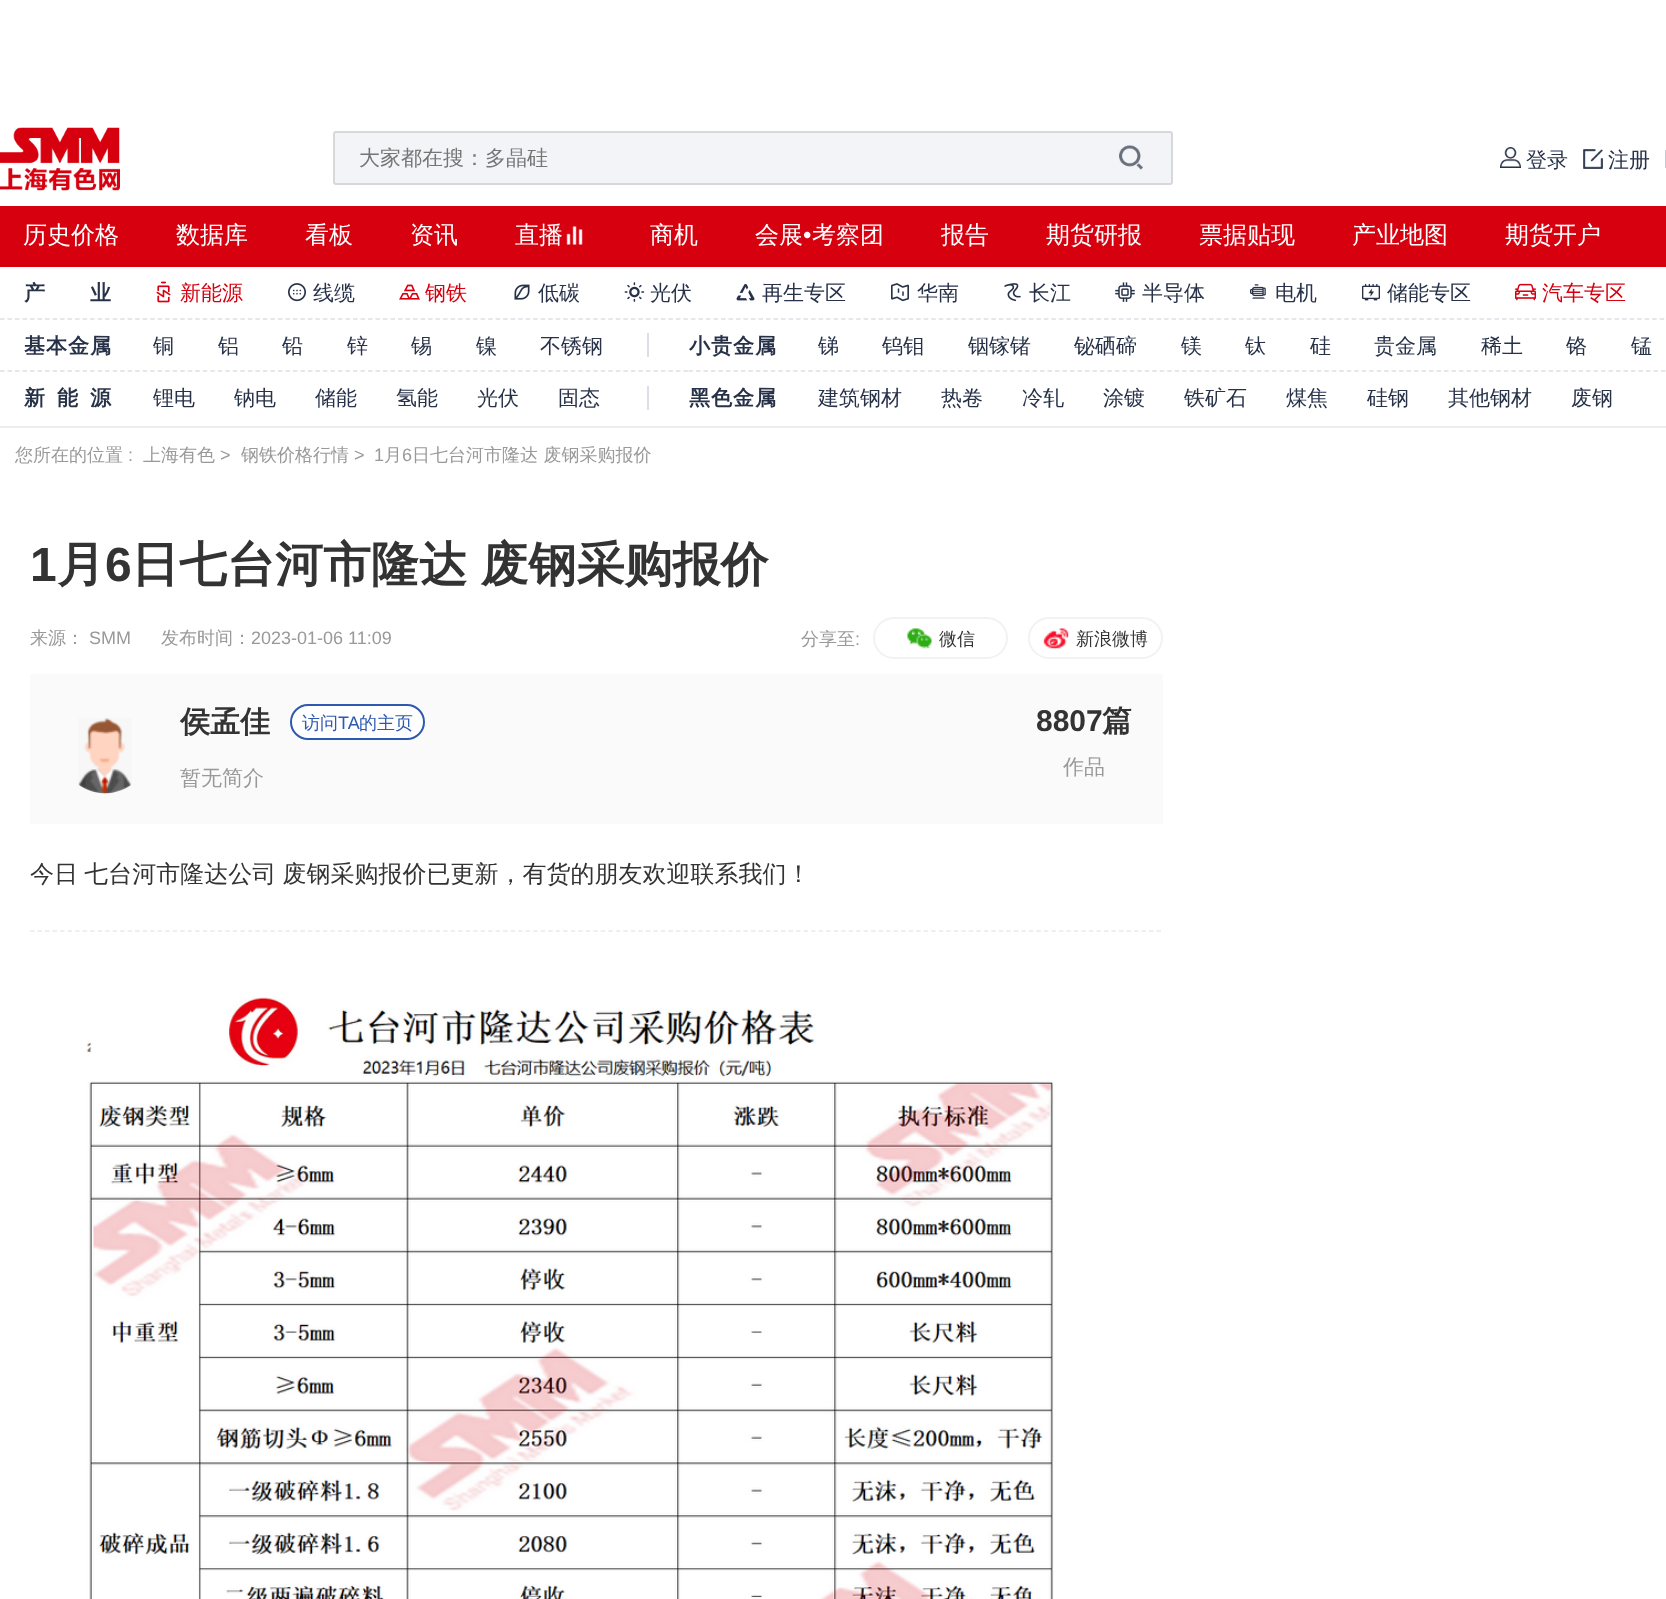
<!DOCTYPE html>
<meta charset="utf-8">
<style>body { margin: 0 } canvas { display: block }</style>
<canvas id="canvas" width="1666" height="1599"></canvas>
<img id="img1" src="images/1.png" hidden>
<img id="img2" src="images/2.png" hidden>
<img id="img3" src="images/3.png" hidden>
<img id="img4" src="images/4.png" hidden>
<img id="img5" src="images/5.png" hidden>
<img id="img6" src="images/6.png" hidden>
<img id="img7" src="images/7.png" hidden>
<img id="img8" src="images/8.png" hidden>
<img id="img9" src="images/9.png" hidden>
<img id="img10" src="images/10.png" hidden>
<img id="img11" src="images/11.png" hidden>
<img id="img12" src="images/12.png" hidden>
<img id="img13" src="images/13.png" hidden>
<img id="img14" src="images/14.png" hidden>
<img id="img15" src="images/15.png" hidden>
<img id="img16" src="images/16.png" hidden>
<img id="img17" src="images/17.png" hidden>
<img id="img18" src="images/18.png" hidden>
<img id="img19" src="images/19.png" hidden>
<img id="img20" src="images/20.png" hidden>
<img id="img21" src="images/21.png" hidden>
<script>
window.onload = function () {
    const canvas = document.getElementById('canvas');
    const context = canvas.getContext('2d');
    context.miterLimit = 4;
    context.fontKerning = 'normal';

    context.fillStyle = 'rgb(255, 255, 255)';
    context.fillRect(0, 0, 1666, 1599);
    context.fillStyle = 'rgb(237, 237, 237)';
    context.fillRect(0, 426, 1666, 2);
    context.drawImage(document.getElementById('img1'), 0, 127, 120, 64);
    context.fillStyle = 'rgb(243, 244, 248)';
    context.beginPath();
    context.roundRect(334, 132, 838, 52, 2);
    context.fill();
    context.strokeStyle = 'rgb(215, 216, 219)';
    context.lineWidth = 2;
    context.stroke();
    context.drawImage(document.getElementById('img2'), 1119, 145, 24, 25);
    context.drawImage(document.getElementById('img3'), 1500, 147, 21, 21);
    context.drawImage(document.getElementById('img4'), 1583, 149, 20, 20);
    context.fillStyle = 'rgb(199, 202, 209)';
    context.fillRect(1665, 150, 1, 18);
    context.fillStyle = 'rgb(215, 0, 15)';
    context.fillRect(0, 206, 1666, 61);
    context.drawImage(document.getElementById('img5'), 566, 226, 17, 19);
    context.beginPath();
    context.moveTo(0, 319);
    context.lineTo(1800, 319);
    context.strokeStyle = 'rgb(221, 223, 230)';
    context.lineWidth = 1.5;
    context.setLineDash([4.5, 3.01]);
    context.stroke();
    context.drawImage(document.getElementById('img6'), 156, 281, 15, 22);
    context.drawImage(document.getElementById('img7'), 288, 283, 18, 19);
    context.drawImage(document.getElementById('img8'), 399, 284, 21, 16);
    context.drawImage(document.getElementById('img9'), 514, 284, 16, 16);
    context.drawImage(document.getElementById('img10'), 624, 282, 21, 20);
    context.drawImage(document.getElementById('img11'), 736, 283, 19, 18);
    context.drawImage(document.getElementById('img12'), 891, 283, 18, 19);
    context.drawImage(document.getElementById('img13'), 1004, 283, 17, 19);
    context.drawImage(document.getElementById('img14'), 1115, 282, 20, 20);
    context.drawImage(document.getElementById('img15'), 1250, 284, 16, 15);
    context.drawImage(document.getElementById('img16'), 1362, 283, 18, 18);
    context.drawImage(document.getElementById('img17'), 1515, 283, 21, 18);
    context.beginPath();
    context.moveTo(0, 371);
    context.lineTo(688.5, 371);
    context.stroke();
    context.fillStyle = 'rgb(221, 223, 230)';
    context.fillRect(647, 333, 2, 24);
    context.beginPath();
    context.moveTo(688.5, 371);
    context.lineTo(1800, 371);
    context.setLineDash([4.5, 2.98]);
    context.stroke();
    context.fillRect(647, 386, 2, 24);
    context.beginPath();
    context.roundRect(874, 618, 133, 40, 20);
    context.strokeStyle = 'rgb(242, 242, 242)';
    context.lineWidth = 2;
    context.setLineDash([]);
    context.stroke();
    context.drawImage(document.getElementById('img18'), 907, 628, 25, 21);
    context.beginPath();
    context.roundRect(1029, 618, 133, 40, 20);
    context.stroke();
    context.drawImage(document.getElementById('img19'), 1043, 628, 26, 22);
    context.fillStyle = 'rgb(250, 250, 250)';
    context.fillRect(30, 674, 1133, 150);
    context.drawImage(document.getElementById('img20'), 78, 718, 54, 76);
    context.fillStyle = 'rgb(255, 255, 255)';
    context.beginPath();
    context.roundRect(291, 705, 133, 34, 17);
    context.fill();
    context.strokeStyle = 'rgb(45, 89, 177)';
    context.stroke();
    context.beginPath();
    context.moveTo(30, 931);
    context.lineTo(1162.5, 931);
    context.strokeStyle = 'rgb(233, 234, 234)';
    context.lineWidth = 1.5;
    context.setLineDash([4.5, 3.01]);
    context.stroke();
    context.drawImage(document.getElementById('img21'), 86, 997, 968, 602);
    context.font = '500 21px WenQuanYi Zen Hei';
    context.fillStyle = 'rgb(117, 117, 117)';
    context.fillText('大家都在搜：多晶硅', 359, 165);
    context.fillStyle = 'rgb(39, 50, 73)';
    context.fillText('登录', 1526, 167);
    context.fillText('注册', 1608, 167);
    context.font = '500 24px WenQuanYi Zen Hei';
    context.fillStyle = 'rgb(255, 255, 255)';
    context.fillText('历史价格', 23, 243);
    context.fillText('数据库', 176, 243);
    context.fillText('看板', 305, 243);
    context.fillText('资讯', 410, 243);
    context.fillText('直播', 515, 243);
    context.fillText('商机', 650, 243);
    context.fillText('会展', 755, 243);
    context.font = '24px Liberation Sans';
    context.fillText('•', 803, 243);
    context.font = '500 24px WenQuanYi Zen Hei';
    context.fillText('考察团', 812, 243);
    context.fillText('报告', 941, 243);
    context.fillText('期货研报', 1046, 243);
    context.fillText('票据贴现', 1199, 243);
    context.fillText('产业地图', 1352, 243);
    context.fillText('期货开户', 1505, 243);
    context.letterSpacing = '-2px';
    context.font = 'bold 21px WenQuanYi Zen Hei';
    context.fillStyle = 'rgb(39, 50, 73)';
    context.fillText('产', 24, 300);
    context.fillText('业', 90, 300);
    context.letterSpacing = '0px';
    context.font = '500 21px WenQuanYi Zen Hei';
    context.fillStyle = 'rgb(215, 0, 15)';
    context.fillText('新能源', 180, 300);
    context.fillStyle = 'rgb(39, 50, 73)';
    context.fillText('线缆', 313, 300);
    context.fillStyle = 'rgb(215, 0, 15)';
    context.fillText('钢铁', 425, 300);
    context.fillStyle = 'rgb(39, 50, 73)';
    context.fillText('低碳', 538, 300);
    context.fillText('光伏', 650, 300);
    context.fillText('再生专区', 762, 300);
    context.fillText('华南', 917, 300);
    context.fillText('长江', 1029, 300);
    context.fillText('半导体', 1142, 300);
    context.fillText('电机', 1275, 300);
    context.fillText('储能专区', 1387, 300);
    context.fillStyle = 'rgb(215, 0, 15)';
    context.fillText('汽车专区', 1542, 300);
    context.letterSpacing = '1px';
    context.font = 'bold 21px WenQuanYi Zen Hei';
    context.fillStyle = 'rgb(39, 50, 73)';
    context.fillText('基本金属', 24, 353);
    context.letterSpacing = '0px';
    context.font = '500 21px WenQuanYi Zen Hei';
    context.fillText('铜', 153, 353);
    context.fillText('铝', 218, 353);
    context.fillText('铅', 282, 353);
    context.fillText('锌', 347, 353);
    context.fillText('锡', 411, 353);
    context.fillText('镍', 476, 353);
    context.fillText('不锈钢', 540, 353);
    context.letterSpacing = '1px';
    context.font = 'bold 21px WenQuanYi Zen Hei';
    context.fillText('小贵金属', 689, 353);
    context.letterSpacing = '0px';
    context.font = '500 21px WenQuanYi Zen Hei';
    context.fillText('锑', 818, 353);
    context.fillText('钨钼', 882, 353);
    context.fillText('铟镓锗', 968, 353);
    context.fillText('铋硒碲', 1074, 353);
    context.fillText('镁', 1181, 353);
    context.fillText('钛', 1245, 353);
    context.fillText('硅', 1310, 353);
    context.fillText('贵金属', 1374, 353);
    context.fillText('稀土', 1481, 353);
    context.fillText('铬', 1566, 353);
    context.fillText('锰', 1631, 353);
    context.letterSpacing = '12px';
    context.font = 'bold 21px WenQuanYi Zen Hei';
    context.fillText('新能源', 24, 405);
    context.letterSpacing = '0px';
    context.font = '500 21px WenQuanYi Zen Hei';
    context.fillText('锂电', 153, 405);
    context.fillText('钠电', 234, 405);
    context.fillText('储能', 315, 405);
    context.fillText('氢能', 396, 405);
    context.fillText('光伏', 477, 405);
    context.fillText('固态', 558, 405);
    context.letterSpacing = '1px';
    context.font = 'bold 21px WenQuanYi Zen Hei';
    context.fillText('黑色金属', 689, 405);
    context.letterSpacing = '0px';
    context.font = '500 21px WenQuanYi Zen Hei';
    context.fillText('建筑钢材', 818, 405);
    context.fillText('热卷', 941, 405);
    context.fillText('冷轧', 1022, 405);
    context.fillText('涂镀', 1103, 405);
    context.fillText('铁矿石', 1184, 405);
    context.fillText('煤焦', 1286, 405);
    context.fillText('硅钢', 1367, 405);
    context.fillText('其他钢材', 1448, 405);
    context.fillText('废钢', 1571, 405);
    context.font = '500 18px WenQuanYi Zen Hei';
    context.fillStyle = 'rgb(153, 153, 153)';
    context.fillText('您所在的位置', 15, 461);
    context.font = '18px Liberation Sans';
    context.fillText(':', 128, 461);
    context.font = '500 18px WenQuanYi Zen Hei';
    context.fillText('上海有色', 143, 461);
    context.font = '18px Liberation Sans';
    context.fillText('>', 220, 461);
    context.font = '500 18px WenQuanYi Zen Hei';
    context.fillText('钢铁价格行情', 241, 461);
    context.font = '18px Liberation Sans';
    context.fillText('>', 354, 461);
    context.fillText('1', 374, 461);
    context.font = '500 18px WenQuanYi Zen Hei';
    context.fillText('月', 384, 461);
    context.font = '18px Liberation Sans';
    context.fillText('6', 402, 461);
    context.font = '500 18px WenQuanYi Zen Hei';
    context.fillText('日七台河市隆达 废钢采购报价', 412, 461);
    context.font = 'bold 48px Liberation Sans';
    context.fillStyle = 'rgb(51, 51, 51)';
    context.fillText('1', 30, 581);
    context.font = 'bold 48px WenQuanYi Zen Hei';
    context.fillText('月', 57, 581);
    context.font = 'bold 48px Liberation Sans';
    context.fillText('6', 105, 581);
    context.wordSpacing = '-1px';
    context.font = 'bold 48px WenQuanYi Zen Hei';
    context.fillText('日七台河市隆达 废钢采购报价', 131, 581);
    context.wordSpacing = '0px';
    context.font = '500 18px WenQuanYi Zen Hei';
    context.fillStyle = 'rgb(153, 153, 153)';
    context.fillText('来源：', 30, 644);
    context.font = '18px Liberation Sans';
    context.fillText('SMM', 89, 644);
    context.font = '500 18px WenQuanYi Zen Hei';
    context.fillText('发布时间：', 161, 644);
    context.font = '18px Liberation Sans';
    context.fillText('2023-01-06 11:09', 251, 644);
    context.font = '500 18px WenQuanYi Zen Hei';
    context.fillText('分享至', 801, 645);
    context.font = '18px Liberation Sans';
    context.fillText(':', 855, 645);
    context.font = '500 18px WenQuanYi Zen Hei';
    context.fillStyle = 'rgb(51, 51, 51)';
    context.fillText('微信', 939, 645);
    context.fillText('新浪微博', 1076, 645);
    context.font = 'bold 30px WenQuanYi Zen Hei';
    context.fillText('侯孟佳', 180, 732);
    context.font = '500 18px WenQuanYi Zen Hei';
    context.fillStyle = 'rgb(45, 89, 177)';
    context.fillText('访问', 302, 729);
    context.font = '18px Liberation Sans';
    context.fillText('TA', 338, 729);
    context.font = '500 18px WenQuanYi Zen Hei';
    context.fillText('的主页', 359, 729);
    context.font = '500 21px WenQuanYi Zen Hei';
    context.fillStyle = 'rgb(153, 153, 153)';
    context.fillText('暂无简介', 180, 785);
    context.font = 'bold 30px Liberation Sans';
    context.fillStyle = 'rgb(51, 51, 51)';
    context.fillText('8807', 1036, 731);
    context.font = 'bold 30px WenQuanYi Zen Hei';
    context.fillText('篇', 1102, 731);
    context.font = '500 21px WenQuanYi Zen Hei';
    context.fillStyle = 'rgb(153, 153, 153)';
    context.fillText('作品', 1063, 774);
    context.wordSpacing = '-1px';
    context.font = '500 24px WenQuanYi Zen Hei';
    context.fillStyle = 'rgb(51, 51, 51)';
    context.fillText('今日 七台河市隆达公司 废钢采购报价已更新，有货的朋友欢迎联系我们！', 30, 882);
};
</script>
